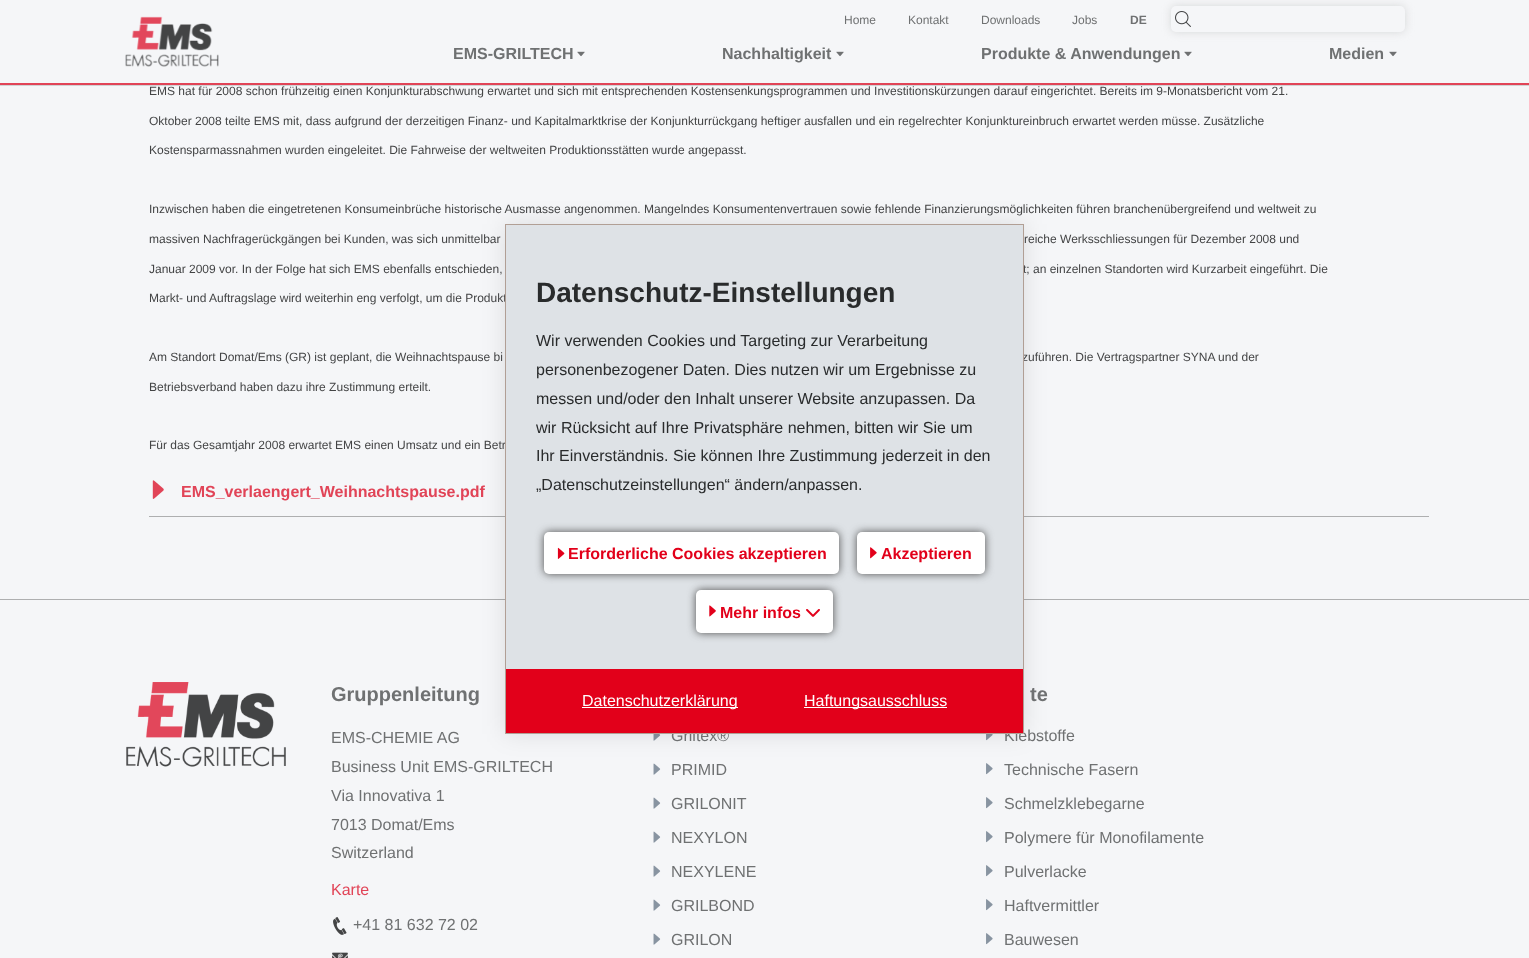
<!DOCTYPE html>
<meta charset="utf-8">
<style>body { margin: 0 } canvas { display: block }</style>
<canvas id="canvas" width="1529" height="958"></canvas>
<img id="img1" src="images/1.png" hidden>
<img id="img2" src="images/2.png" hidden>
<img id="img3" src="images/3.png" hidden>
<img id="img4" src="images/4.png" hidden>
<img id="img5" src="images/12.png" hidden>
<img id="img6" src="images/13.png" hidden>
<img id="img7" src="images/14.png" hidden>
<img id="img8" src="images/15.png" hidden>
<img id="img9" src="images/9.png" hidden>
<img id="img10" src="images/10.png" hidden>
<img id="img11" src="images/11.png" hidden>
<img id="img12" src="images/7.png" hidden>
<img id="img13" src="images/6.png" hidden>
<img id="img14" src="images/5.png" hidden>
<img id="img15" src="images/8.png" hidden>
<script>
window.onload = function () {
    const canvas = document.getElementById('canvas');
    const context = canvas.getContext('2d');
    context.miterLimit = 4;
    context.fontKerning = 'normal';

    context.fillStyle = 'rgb(245, 246, 248)';
    context.fillRect(0, 0, 1529, 958);
    context.fillStyle = 'rgb(209, 211, 212)';
    context.fillRect(0, 85, 1529, 1);
    context.fillStyle = 'rgb(225, 68, 87)';
    context.fillRect(0, 83, 1529, 2);
    context.drawImage(document.getElementById('img1'), 125, 16, 94, 51);
    context.fillStyle = 'rgb(214, 215, 216)';
    context.filter = 'blur(4px)';
    context.beginPath();
    context.roundRect(1171, 6, 234, 26, 5);
    context.fill();
    context.filter = 'none';
    context.fillStyle = 'rgb(245, 246, 248)';
    context.beginPath();
    context.roundRect(1171, 6, 234, 26, 5);
    context.fill();
    context.drawImage(document.getElementById('img2'), 1175, 11, 16, 16);
    context.drawImage(document.getElementById('img3'), 577, 51, 8, 6);
    context.drawImage(document.getElementById('img3'), 836, 51, 8, 6);
    context.drawImage(document.getElementById('img3'), 1184, 51, 8, 6);
    context.drawImage(document.getElementById('img3'), 1389, 51, 8, 6);
    context.fillStyle = 'rgb(174, 175, 176)';
    context.fillRect(149, 516, 1280, 1);
    context.drawImage(document.getElementById('img4'), 152, 480, 12, 19);
    context.fillRect(0, 599, 1529, 1);
    context.drawImage(document.getElementById('img5'), 653, 734, 8, 7);
    context.drawImage(document.getElementById('img6'), 653, 763, 8, 12);
    context.drawImage(document.getElementById('img7'), 986, 734, 7, 7);
    context.drawImage(document.getElementById('img8'), 986, 763, 7, 12);
    context.fillStyle = 'rgba(0, 0, 0, 0.1)';
    context.filter = 'blur(12.5px)';
    context.beginPath();
    context.rect(505, 224, 519, 510);
    context.fill();
    context.filter = 'none';
    context.drawImage(document.getElementById('img9'), 126, 682, 160, 85);
    context.drawImage(document.getElementById('img10'), 333, 917, 14, 18);
    context.drawImage(document.getElementById('img11'), 332, 952, 16, 6);
    context.drawImage(document.getElementById('img6'), 653, 797, 8, 12);
    context.drawImage(document.getElementById('img6'), 653, 831, 8, 12);
    context.drawImage(document.getElementById('img6'), 653, 865, 8, 12);
    context.drawImage(document.getElementById('img6'), 653, 899, 8, 12);
    context.drawImage(document.getElementById('img6'), 653, 933, 8, 12);
    context.drawImage(document.getElementById('img8'), 986, 797, 7, 12);
    context.drawImage(document.getElementById('img8'), 986, 831, 7, 12);
    context.drawImage(document.getElementById('img8'), 986, 865, 7, 12);
    context.drawImage(document.getElementById('img8'), 986, 899, 7, 12);
    context.drawImage(document.getElementById('img8'), 986, 933, 7, 12);
    context.font = '12px Liberation Sans';
    context.fillStyle = 'rgb(111, 113, 114)';
    context.fillText('Home', 844, 24);
    context.fillText('Kontakt', 908, 24);
    context.fillText('Downloads', 981, 24);
    context.fillText('Jobs', 1072, 24);
    context.font = 'bold 12px Liberation Sans';
    context.fillText('DE', 1130, 24);
    context.font = 'bold 16px Liberation Sans';
    context.fillText('EMS-GRILTECH', 453, 59);
    context.fillText('Nachhaltigkeit', 722, 59);
    context.fillText('Produkte & Anwendungen', 981, 59);
    context.fillText('Medien', 1329, 59);
    context.font = '12px Liberation Sans';
    context.fillStyle = 'rgb(67, 68, 69)';
    context.fillText('EMS hat für 2008 schon frühzeitig einen Konjunkturabschwung erwartet und sich mit entsprechenden Kostensenkungsprogrammen und Investitionskürzungen darauf eingerichtet. Bereits im 9-Monatsbericht vom 21.', 149, 95);
    context.fillText('Oktober 2008 teilte EMS mit, dass aufgrund der derzeitigen Finanz- und Kapitalmarktkrise der Konjunkturrückgang heftiger ausfallen und ein regelrechter Konjunktureinbruch erwartet werden müsse. Zusätzliche', 149, 125);
    context.fillText('Kostensparmassnahmen wurden eingeleitet. Die Fahrweise der weltweiten Produktionsstätten wurde angepasst.', 149, 154);
    context.fillText('Inzwischen haben die eingetretenen Konsumeinbrüche historische Ausmasse angenommen. Mangelndes Konsumentenvertrauen sowie fehlende Finanzierungsmöglichkeiten führen branchenübergreifend und weltweit zu', 149, 213);
    context.fillText('massiven Nachfragerückgängen bei Kunden, was sich unmittelbar', 149, 243);
    context.fillText('reiche Werksschliessungen für Dezember 2008 und', 1024, 243);
    context.fillText('Januar 2009 vor. In der Folge hat sich EMS ebenfalls entschieden,', 149, 273);
    context.fillText('t; an einzelnen Standorten wird Kurzarbeit eingeführt. Die', 1023, 273);
    context.fillText('Markt- und Auftragslage wird weiterhin eng verfolgt, um die Produkt', 149, 302);
    context.fillText('Am Standort Domat/Ems (GR) ist geplant, die Weihnachtspause bi', 149, 361);
    context.fillText('zuführen. Die Vertragspartner SYNA und der', 1022, 361);
    context.fillText('Betriebsverband haben dazu ihre Zustimmung erteilt.', 149, 391);
    context.fillText('Für das Gesamtjahr 2008 erwartet EMS einen Umsatz und ein Betr', 149, 449);
    context.font = 'bold 16px Liberation Sans';
    context.fillStyle = 'rgb(225, 68, 87)';
    context.fillText('EMS_verlaengert_Weihnachtspause.pdf', 181, 497);
    context.fillStyle = 'rgb(222, 226, 230)';
    context.fillRect(506, 225, 517, 444);
    context.font = 'bold 20px Liberation Sans';
    context.fillStyle = 'rgb(111, 113, 114)';
    context.fillText('Gruppenleitung', 331, 701);
    context.font = '16px Liberation Sans';
    context.fillText('EMS-CHEMIE AG', 331, 743);
    context.fillText('Business Unit EMS-GRILTECH', 331, 772);
    context.fillText('Via Innovativa 1', 331, 801);
    context.fillText('7013 Domat/Ems', 331, 830);
    context.fillText('Switzerland', 331, 858);
    context.fillStyle = 'rgb(225, 68, 87)';
    context.fillText('Karte', 331, 895);
    context.fillStyle = 'rgb(111, 113, 114)';
    context.fillText('+41 81 632 72 02', 353, 930);
    context.fillText('Griltex®', 671, 741);
    context.fillText('PRIMID', 671, 775);
    context.fillText('GRILONIT', 671, 809);
    context.fillText('NEXYLON', 671, 843);
    context.fillText('NEXYLENE', 671, 877);
    context.fillText('GRILBOND', 671, 911);
    context.fillText('GRILON', 671, 945);
    context.font = 'bold 20px Liberation Sans';
    context.fillText('te', 1030, 701);
    context.font = '16px Liberation Sans';
    context.fillText('Klebstoffe', 1004, 741);
    context.strokeStyle = 'rgb(177, 159, 149)';
    context.strokeRect(505.5, 224.5, 518, 509);
    context.fillStyle = 'rgb(226, 0, 26)';
    context.fillRect(506, 669, 517, 64);
    context.fillStyle = 'rgb(255, 255, 255)';
    context.fillRect(804, 707, 143, 1);
    context.fillText('Haftungsausschluss', 804, 706);
    context.fillRect(582, 707, 156, 1);
    context.fillText('Datenschutzerklärung', 582, 706);
    context.fillStyle = 'rgb(78, 78, 78)';
    context.filter = 'blur(4px)';
    context.beginPath();
    context.roundRect(696, 590, 137, 43, 5);
    context.fill();
    context.filter = 'none';
    context.fillStyle = 'rgb(255, 255, 255)';
    context.beginPath();
    context.roundRect(696, 590, 137, 43, 5);
    context.fill();
    context.drawImage(document.getElementById('img12'), 709, 605, 7, 12);
    context.fillStyle = 'rgb(78, 78, 78)';
    context.filter = 'blur(4px)';
    context.beginPath();
    context.roundRect(857, 532, 128, 42, 5);
    context.fill();
    context.filter = 'none';
    context.fillStyle = 'rgb(255, 255, 255)';
    context.beginPath();
    context.roundRect(857, 532, 128, 42, 5);
    context.fill();
    context.drawImage(document.getElementById('img13'), 870, 547, 7, 12);
    context.fillStyle = 'rgb(78, 78, 78)';
    context.filter = 'blur(4px)';
    context.beginPath();
    context.roundRect(544, 532, 295, 42, 5);
    context.fill();
    context.filter = 'none';
    context.fillStyle = 'rgb(255, 255, 255)';
    context.beginPath();
    context.roundRect(544, 532, 295, 42, 5);
    context.fill();
    context.drawImage(document.getElementById('img14'), 557, 547, 8, 12);
    context.drawImage(document.getElementById('img15'), 806, 609, 14, 8);
    context.font = 'bold 16px Liberation Sans';
    context.fillStyle = 'rgb(226, 0, 26)';
    context.fillText('Mehr infos', 720, 618);
    context.fillText('Akzeptieren', 881, 559);
    context.fillText('Erforderliche Cookies akzeptieren', 568, 559);
    context.font = '16px Liberation Sans';
    context.fillStyle = 'rgb(41, 43, 44)';
    context.fillText('„Datenschutzeinstellungen“ ändern/anpassen.', 536, 490);
    context.fillText('Ihr Einverständnis. Sie können Ihre Zustimmung jederzeit in den', 536, 461);
    context.fillText('wir Rücksicht auf Ihre Privatsphäre nehmen, bitten wir Sie um', 536, 433);
    context.fillText('messen und/oder den Inhalt unserer Website anzupassen. Da', 536, 404);
    context.fillText('personenbezogener Daten. Dies nutzen wir um Ergebnisse zu', 536, 375);
    context.fillText('Wir verwenden Cookies und Targeting zur Verarbeitung', 536, 346);
    context.font = 'bold 28px Liberation Sans';
    context.fillText('Datenschutz-Einstellungen', 536, 302);
    context.font = '16px Liberation Sans';
    context.fillStyle = 'rgb(111, 113, 114)';
    context.fillText('Technische Fasern', 1004, 775);
    context.fillText('Schmelzklebegarne', 1004, 809);
    context.fillText('Polymere für Monofilamente', 1004, 843);
    context.fillText('Pulverlacke', 1004, 877);
    context.fillText('Haftvermittler', 1004, 911);
    context.fillText('Bauwesen', 1004, 945);
};
</script>
